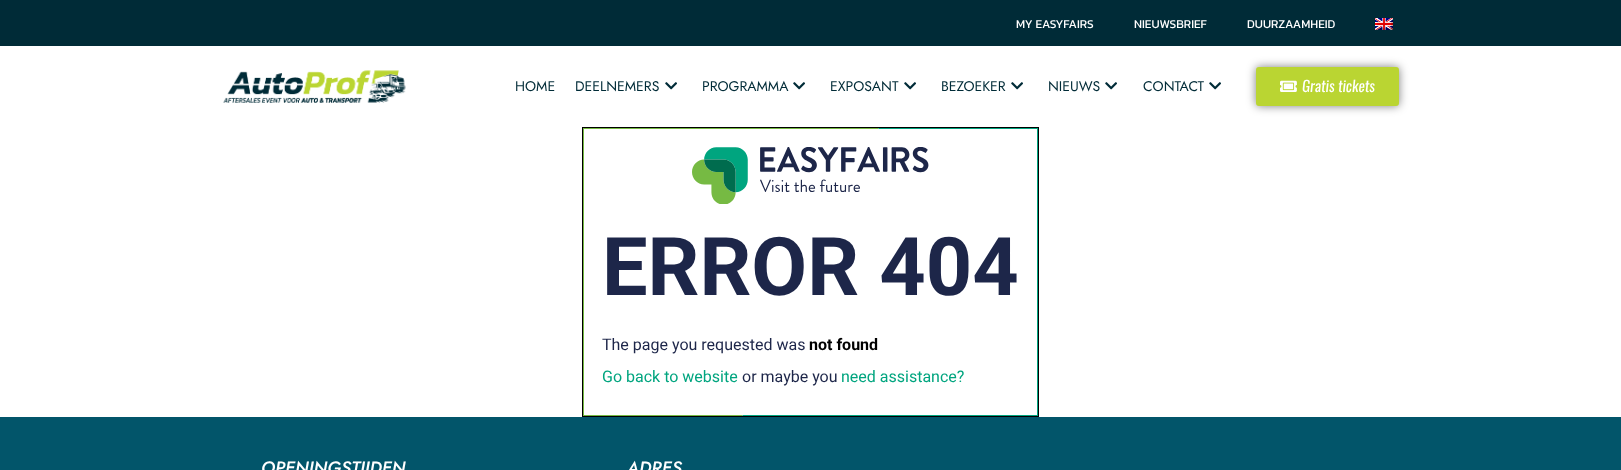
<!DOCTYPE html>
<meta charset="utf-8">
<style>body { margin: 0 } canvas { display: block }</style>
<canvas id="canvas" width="1621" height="470"></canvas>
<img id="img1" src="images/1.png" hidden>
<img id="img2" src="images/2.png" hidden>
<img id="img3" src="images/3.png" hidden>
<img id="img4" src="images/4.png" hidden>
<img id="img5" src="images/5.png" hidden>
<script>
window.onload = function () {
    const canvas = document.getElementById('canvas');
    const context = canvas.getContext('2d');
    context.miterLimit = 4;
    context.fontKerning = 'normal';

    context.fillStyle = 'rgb(255, 255, 255)';
    context.fillRect(0, 0, 1621, 470);
    context.fillStyle = 'rgb(0, 43, 55)';
    context.fillRect(0, 0, 1621, 46);
    context.drawImage(document.getElementById('img1'), 1375, 18, 18, 12);
    context.drawImage(document.getElementById('img2'), 223, 70, 183, 33);
    context.drawImage(document.getElementById('img3'), 665, 82, 12, 8);
    context.drawImage(document.getElementById('img3'), 793, 82, 12, 8);
    context.drawImage(document.getElementById('img3'), 904, 82, 12, 8);
    context.drawImage(document.getElementById('img3'), 1011, 82, 12, 8);
    context.drawImage(document.getElementById('img3'), 1105, 82, 12, 8);
    context.drawImage(document.getElementById('img3'), 1209, 82, 12, 8);
    context.fillStyle = 'rgba(0, 0, 0, 0.5)';
    context.filter = 'blur(5px)';
    context.beginPath();
    context.roundRect(1256, 67, 143, 39, 3);
    context.fill();
    context.filter = 'none';
    context.fillStyle = 'rgb(186, 213, 50)';
    context.beginPath();
    context.roundRect(1256, 67, 143, 39, 3);
    context.fill();
    context.drawImage(document.getElementById('img4'), 1280, 80, 17, 12);
    context.drawImage(document.getElementById('img5'), 692, 147, 237, 57);
    context.strokeStyle = 'rgb(0, 0, 0)';
    context.strokeRect(582.5, 127.5, 456, 289);
    context.fillStyle = 'rgb(118, 186, 67)';
    context.beginPath();
    context.moveTo(584, 129);
    context.lineTo(878, 129);
    context.lineTo(879, 128);
    context.lineTo(583, 128);
    context.lineTo(583, 416);
    context.lineTo(742, 416);
    context.lineTo(743, 415);
    context.lineTo(584, 415);
    context.closePath();
    context.fill();
    context.fillStyle = 'rgb(0, 165, 127)';
    context.beginPath();
    context.moveTo(879, 128);
    context.lineTo(878, 129);
    context.lineTo(1037, 129);
    context.lineTo(1037, 415);
    context.lineTo(743, 415);
    context.lineTo(742, 416);
    context.lineTo(1038, 416);
    context.lineTo(1038, 128);
    context.closePath();
    context.fill();
    context.fillStyle = 'rgb(2, 85, 106)';
    context.fillRect(0, 417, 1621, 53);
    context.font = '12px Kanit';
    context.fillStyle = 'rgb(255, 255, 255)';
    context.fillText('MY EASYFAIRS', 1016, 28);
    context.fillText('NIEUWSBRIEF', 1134, 28);
    context.fillText('DUURZAAMHEID', 1247, 28);
    context.font = '14px Jost';
    context.fillStyle = 'rgb(0, 43, 55)';
    context.fillText('HOME', 515, 91);
    context.fillText('DEELNEMERS', 575, 91);
    context.fillText('PROGRAMMA', 702, 91);
    context.fillText('EXPOSANT', 830, 91);
    context.fillText('BEZOEKER', 941, 91);
    context.fillText('NIEUWS', 1048, 91);
    context.fillText('CONTACT', 1143, 91);
    context.font = 'italic 15px Oswald';
    context.fillStyle = 'rgb(255, 255, 255)';
    context.fillText('Gratis tickets', 1302, 92);
    context.font = 'bold 81px Roboto';
    context.fillStyle = 'rgb(29, 38, 73)';
    context.fillText('ERROR 404', 602, 295);
    context.font = '16px Roboto';
    context.fillText('The page you requested was', 602, 350);
    context.font = 'bold 16px Roboto';
    context.fillStyle = 'rgb(0, 0, 0)';
    context.fillText('not found', 809, 350);
    context.font = '16px Roboto';
    context.fillStyle = 'rgb(0, 165, 127)';
    context.fillText('Go back to website', 602, 382);
    context.fillStyle = 'rgb(29, 38, 73)';
    context.fillText('or maybe you', 742, 382);
    context.fillStyle = 'rgb(0, 165, 127)';
    context.fillText('need assistance?', 841, 382);
    context.font = 'italic 500 18px Jost';
    context.fillStyle = 'rgb(255, 255, 255)';
    context.fillText('OPENINGSTIJDEN', 261, 474);
    context.fillText('ADRES', 627, 474);
};
</script>
